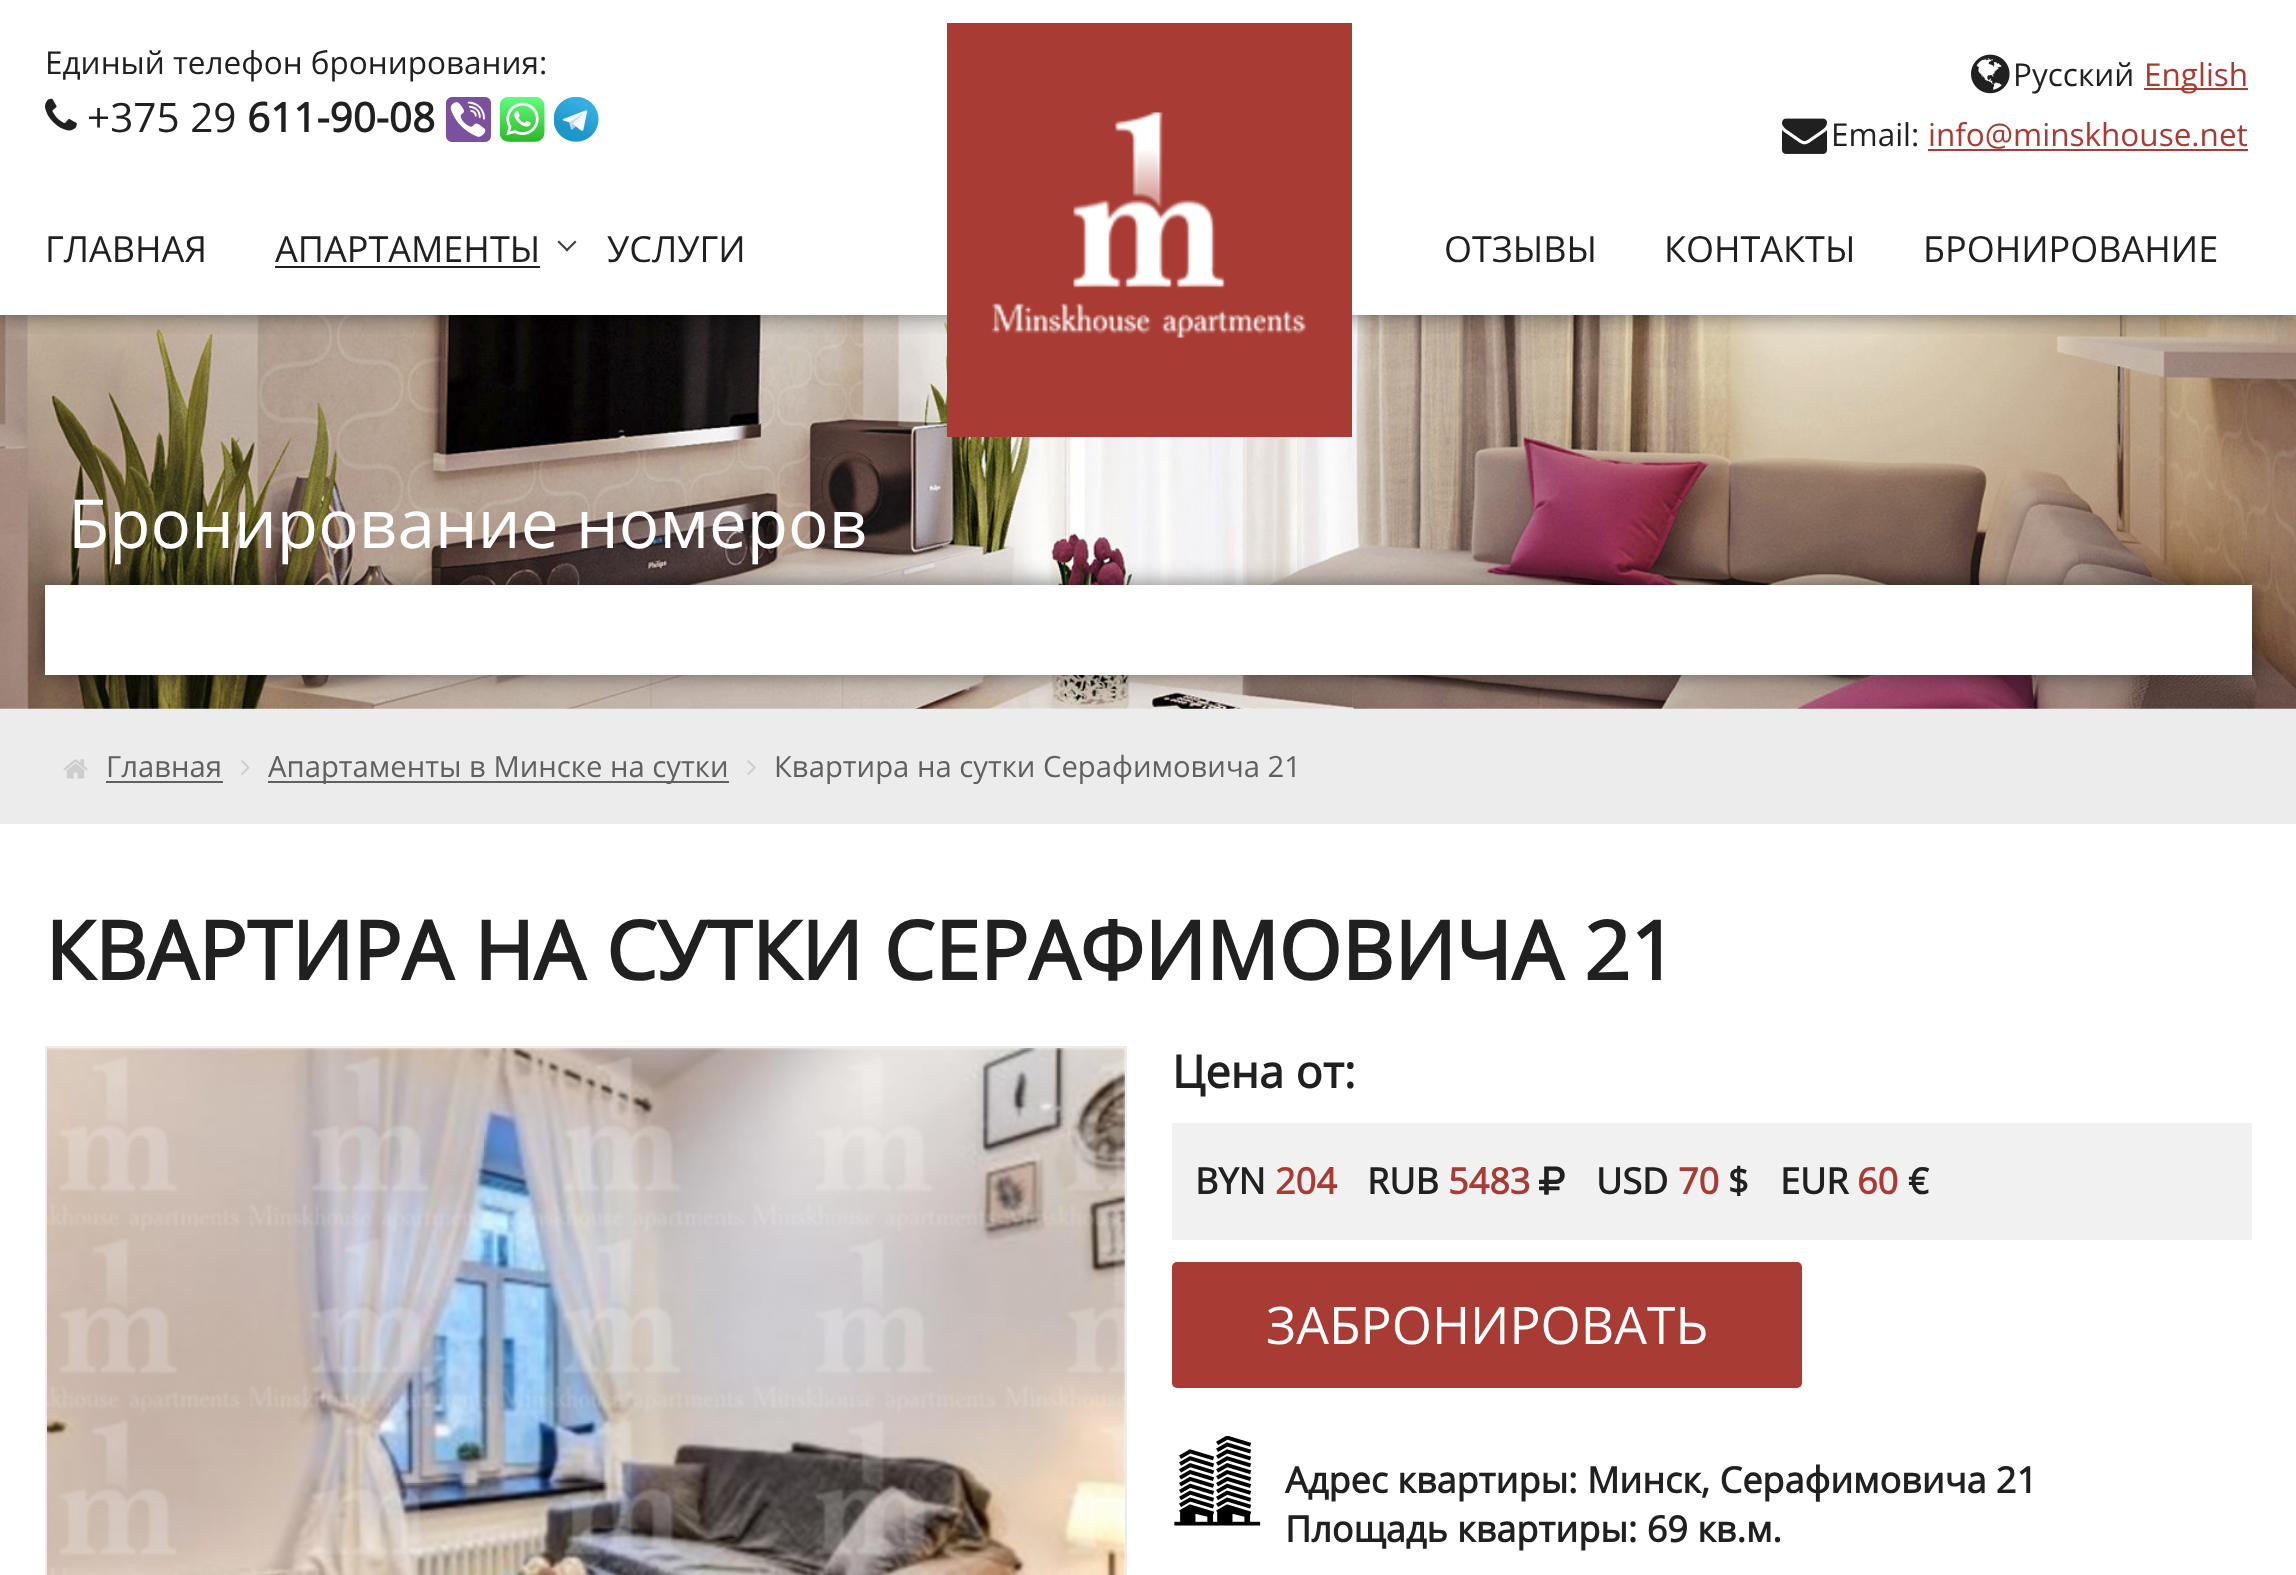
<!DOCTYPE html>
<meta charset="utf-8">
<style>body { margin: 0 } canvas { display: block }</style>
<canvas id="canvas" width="2296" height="1575"></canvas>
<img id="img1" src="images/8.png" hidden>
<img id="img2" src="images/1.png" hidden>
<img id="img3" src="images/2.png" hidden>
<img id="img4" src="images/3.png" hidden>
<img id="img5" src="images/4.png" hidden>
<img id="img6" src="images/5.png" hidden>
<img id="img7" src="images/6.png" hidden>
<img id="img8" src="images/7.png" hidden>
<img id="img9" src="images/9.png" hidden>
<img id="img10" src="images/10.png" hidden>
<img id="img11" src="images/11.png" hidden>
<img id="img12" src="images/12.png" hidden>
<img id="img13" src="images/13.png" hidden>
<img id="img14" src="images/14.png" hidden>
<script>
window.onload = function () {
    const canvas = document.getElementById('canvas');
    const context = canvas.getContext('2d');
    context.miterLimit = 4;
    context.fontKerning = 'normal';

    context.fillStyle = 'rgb(255, 255, 255)';
    context.fillRect(0, 0, 2296, 1575);
    context.drawImage(document.getElementById('img1'), 0, 315, 2296, 394);
    context.save();
    context.beginPath();
    context.rect(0, 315, 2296, 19);
    context.clip();
    context.fillStyle = 'rgba(0, 0, 0, 0.5)';
    context.filter = 'blur(11px)';
    context.beginPath();
    context.rect(0, 0, 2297, 315);
    context.fill();
    context.filter = 'none';
    context.restore();
    context.drawImage(document.getElementById('img2'), 45, 98, 32, 33);
    context.drawImage(document.getElementById('img3'), 446, 97, 45, 45);
    context.drawImage(document.getElementById('img4'), 500, 97, 45, 45);
    context.drawImage(document.getElementById('img5'), 554, 97, 45, 45);
    context.fillStyle = 'rgb(168, 60, 52)';
    context.fillRect(947, 23, 405, 414);
    context.drawImage(document.getElementById('img6'), 991, 112, 315, 226);
    context.drawImage(document.getElementById('img7'), 1971, 54, 39, 40);
    context.fillRect(2144, 88, 104, 2);
    context.drawImage(document.getElementById('img8'), 1782, 118, 45, 36);
    context.fillRect(1928, 149, 320, 2);
    context.fillStyle = 'rgb(32, 32, 32)';
    context.fillRect(275, 266, 265, 2);
    context.fillStyle = 'rgb(64, 64, 64)';
    context.beginPath();
    context.moveTo(565.5, 250);
    context.lineTo(575, 240.5);
    context.lineTo(576.5, 242);
    context.lineTo(567, 251.5);
    context.closePath();
    context.fill();
    context.beginPath();
    context.moveTo(557.5, 242);
    context.lineTo(559, 240.5);
    context.lineTo(568.5, 250);
    context.lineTo(567, 251.5);
    context.closePath();
    context.fill();
    context.fillStyle = 'rgba(0, 0, 0, 0.5)';
    context.filter = 'blur(11px)';
    context.beginPath();
    context.rect(45, 585, 2207, 90);
    context.fill();
    context.filter = 'none';
    context.fillStyle = 'rgb(255, 255, 255)';
    context.fillRect(45, 585, 2207, 90);
    context.fillStyle = 'rgb(236, 236, 236)';
    context.fillRect(0, 709, 2296, 115);
    context.drawImage(document.getElementById('img9'), 63, 759, 25, 20);
    context.fillStyle = 'rgb(96, 96, 96)';
    context.fillRect(106, 781, 117, 2);
    context.drawImage(document.getElementById('img10'), 241, 760, 9, 15);
    context.fillRect(268, 781, 461, 2);
    context.drawImage(document.getElementById('img11'), 747, 760, 9, 15);
    context.strokeStyle = 'rgb(236, 236, 236)';
    context.lineWidth = 2;
    context.strokeRect(46, 1047, 1080, 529);
    context.drawImage(document.getElementById('img12'), 47, 1048, 1078, 527);
    context.fillStyle = 'rgb(241, 241, 241)';
    context.fillRect(1172, 1123, 1080, 117);
    context.drawImage(document.getElementById('img13'), 1539, 1166, 26, 29);
    context.fillStyle = 'rgb(168, 60, 52)';
    context.beginPath();
    context.roundRect(1172, 1262, 630, 126, 5);
    context.fill();
    context.drawImage(document.getElementById('img14'), 1174, 1436, 87, 90);
    context.font = '31.5px Open Sans';
    context.fillStyle = 'rgb(32, 32, 32)';
    context.fillText('Единый телефон бронирования:', 45, 74);
    context.font = '40.5px Open Sans';
    context.fillText('+375 29', 87, 132);
    context.font = 'bold 40.5px Open Sans';
    context.fillText('611-90-08', 247, 132);
    context.font = '31.5px Open Sans';
    context.fillText('Русский', 2013, 86);
    context.fillStyle = 'rgb(168, 60, 52)';
    context.fillText('English', 2144, 86);
    context.fillStyle = 'rgb(32, 32, 32)';
    context.fillText('Email:', 1831, 146);
    context.fillStyle = 'rgb(168, 60, 52)';
    context.fillText('info@minskhouse.net', 1928, 146);
    context.font = '36px Open Sans';
    context.fillStyle = 'rgb(32, 32, 32)';
    context.fillText('ГЛАВНАЯ', 45, 262);
    context.fillText('АПАРТАМЕНТЫ', 275, 262);
    context.fillText('УСЛУГИ', 607, 262);
    context.fillText('ОТЗЫВЫ', 1444, 262);
    context.fillText('КОНТАКТЫ', 1664, 262);
    context.fillText('БРОНИРОВАНИЕ', 1923, 262);
    context.font = '67.5px Open Sans';
    context.fillStyle = 'rgb(255, 255, 255)';
    context.fillText('Бронирование номеров', 68, 548);
    context.font = '29.25px Open Sans';
    context.fillStyle = 'rgb(96, 96, 96)';
    context.fillText('Главная', 106, 777);
    context.fillText('Апартаменты в Минске на сутки', 268, 777);
    context.fillText('Квартира на сутки Серафимовича 21', 774, 777);
    context.font = 'bold 81px Open Sans';
    context.fillStyle = 'rgb(32, 32, 32)';
    context.fillText('КВАРТИРА НА СУТКИ СЕРАФИМОВИЧА 21', 45, 980);
    context.font = 'bold 45px Open Sans';
    context.fillText('Цена от:', 1172, 1088);
    context.font = 'bold 36px Open Sans';
    context.fillText('BYN', 1195, 1194);
    context.fillStyle = 'rgb(168, 60, 52)';
    context.fillText('204', 1275, 1194);
    context.fillStyle = 'rgb(32, 32, 32)';
    context.fillText('RUB', 1367, 1194);
    context.fillStyle = 'rgb(168, 60, 52)';
    context.fillText('5483', 1448, 1194);
    context.fillStyle = 'rgb(32, 32, 32)';
    context.fillText('USD', 1596, 1194);
    context.fillStyle = 'rgb(168, 60, 52)';
    context.fillText('70', 1678, 1194);
    context.fillStyle = 'rgb(32, 32, 32)';
    context.fillText('$', 1728, 1194);
    context.fillText('EUR', 1780, 1194);
    context.fillStyle = 'rgb(168, 60, 52)';
    context.fillText('60', 1857, 1194);
    context.fillStyle = 'rgb(32, 32, 32)';
    context.fillText('€', 1908, 1194);
    context.font = '51.75px Open Sans';
    context.fillStyle = 'rgb(255, 255, 255)';
    context.fillText('ЗАБРОНИРОВАТЬ', 1266, 1344);
    context.font = 'bold 36px Open Sans';
    context.fillStyle = 'rgb(32, 32, 32)';
    context.fillText('Адрес квартиры: Минск, Серафимовича 21', 1285, 1493);
    context.fillText('Площадь квартиры: 69 кв.м.', 1285, 1542);
};
</script>
